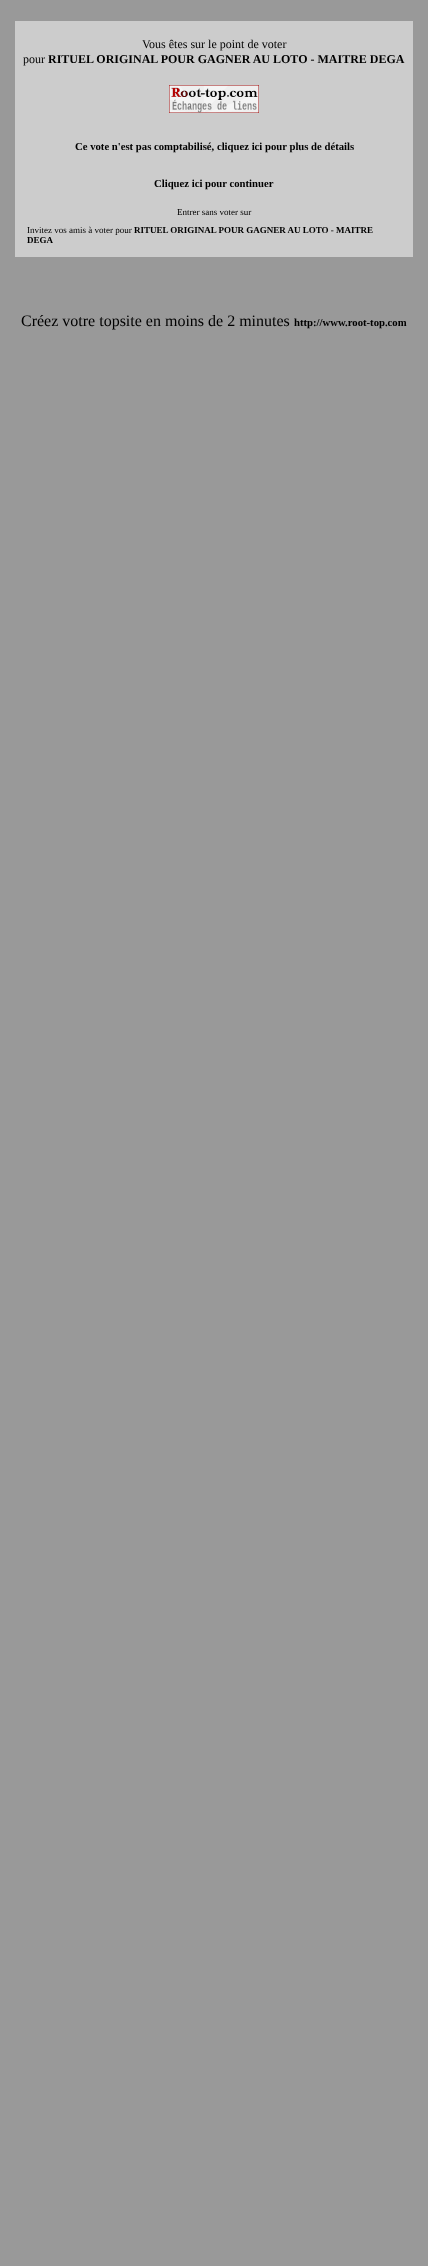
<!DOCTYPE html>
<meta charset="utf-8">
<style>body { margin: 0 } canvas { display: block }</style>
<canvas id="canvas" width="428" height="2266"></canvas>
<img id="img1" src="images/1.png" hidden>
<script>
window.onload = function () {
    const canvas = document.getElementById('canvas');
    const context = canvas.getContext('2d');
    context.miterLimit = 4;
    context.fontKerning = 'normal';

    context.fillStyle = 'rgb(153, 153, 153)';
    context.fillRect(0, 0, 428, 2266);
    context.fillStyle = 'rgb(204, 204, 204)';
    context.fillRect(15, 21, 398, 236);
    context.drawImage(document.getElementById('img1'), 169, 85, 90, 28);
    context.font = '12px Liberation Serif';
    context.fillStyle = 'rgb(0, 0, 0)';
    context.fillText('Vous êtes sur le point de voter', 142, 48);
    context.fillText('pour', 23, 63);
    context.font = 'bold 12px Liberation Serif';
    context.fillText('RITUEL ORIGINAL POUR GAGNER AU LOTO - MAITRE DEGA', 48, 63);
    context.font = 'bold 10.7px Liberation Serif';
    context.fillText('Ce vote n\'est pas comptabilisé, cliquez ici pour plus de détails', 75, 150);
    context.fillText('Cliquez ici pour continuer', 154, 187);
    context.font = '9px Liberation Serif';
    context.fillText('Entrer sans voter sur', 177, 215);
    context.fillText('Invitez vos amis à voter pour', 27, 233);
    context.font = 'bold 9px Liberation Serif';
    context.fillText('RITUEL ORIGINAL POUR GAGNER AU LOTO - MAITRE', 134, 233);
    context.fillText('DEGA', 27, 243);
    context.font = '16px Liberation Serif';
    context.fillText('Créez votre topsite en moins de 2 minutes', 21, 326);
    context.font = 'bold 10.7px Liberation Serif';
    context.fillText('http://www.root-top.com', 294, 326);
};
</script>
